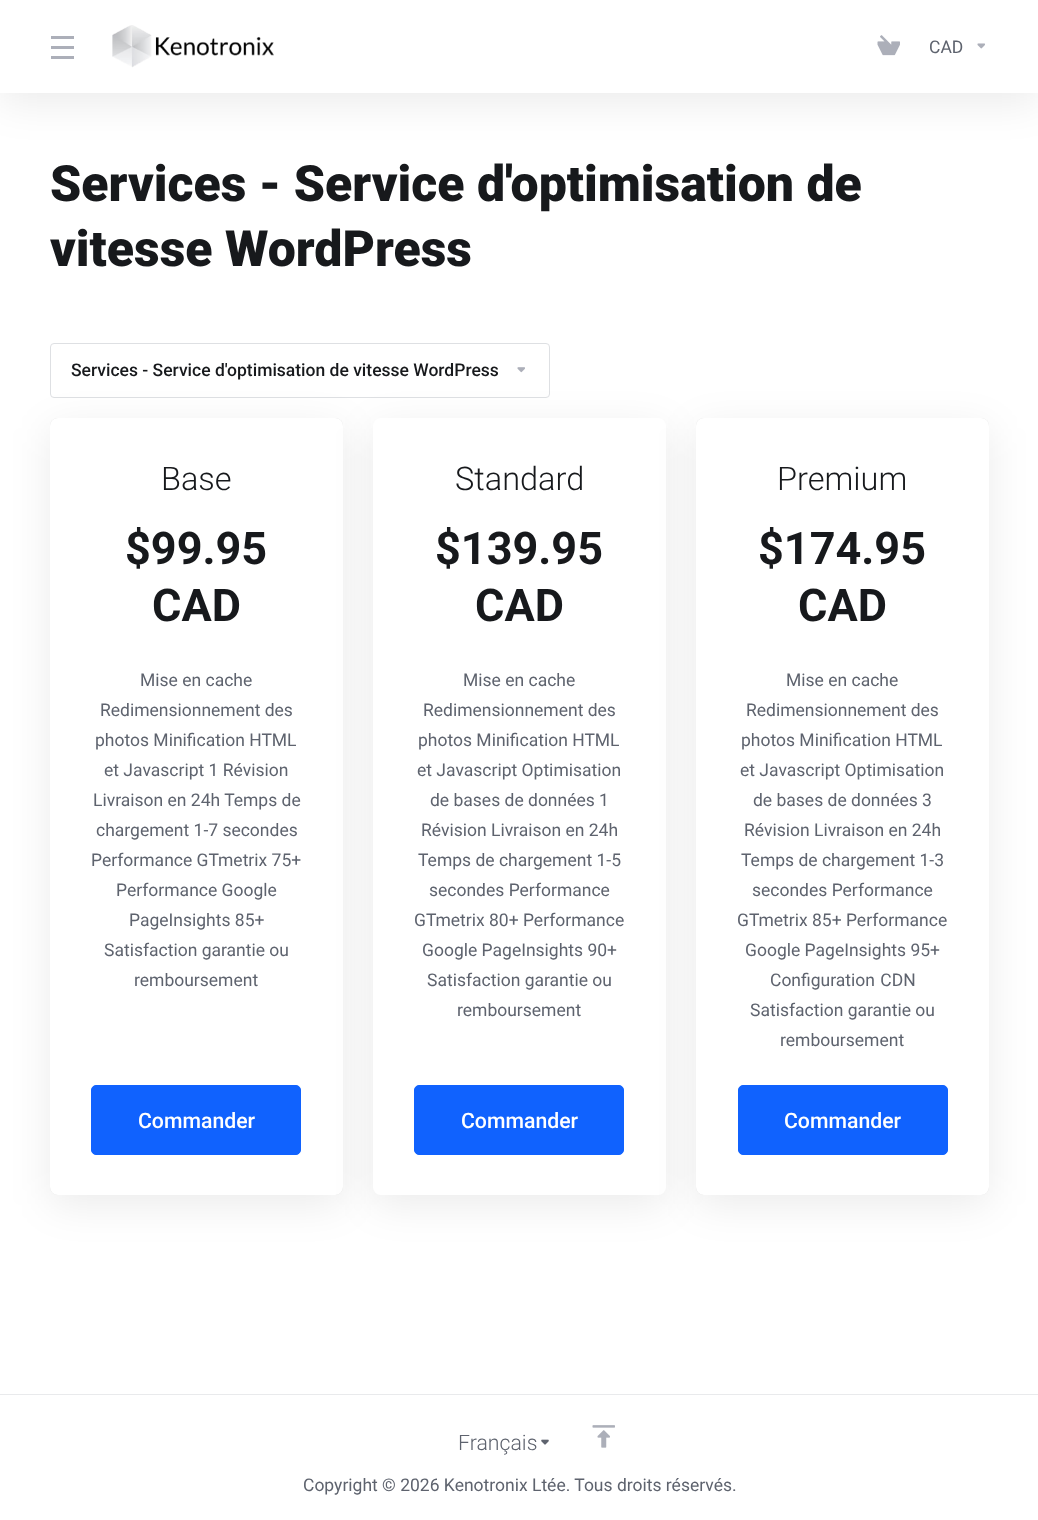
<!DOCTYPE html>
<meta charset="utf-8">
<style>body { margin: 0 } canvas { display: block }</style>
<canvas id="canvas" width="1038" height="1520"></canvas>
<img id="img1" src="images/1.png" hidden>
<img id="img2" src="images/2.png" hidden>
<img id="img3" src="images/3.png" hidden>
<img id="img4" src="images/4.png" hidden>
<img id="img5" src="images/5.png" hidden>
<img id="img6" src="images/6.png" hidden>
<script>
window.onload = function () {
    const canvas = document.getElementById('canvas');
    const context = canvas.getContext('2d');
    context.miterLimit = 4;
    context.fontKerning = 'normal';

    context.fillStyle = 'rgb(255, 255, 255)';
    context.fillRect(0, 0, 1038, 1520);
    context.fillStyle = 'rgba(0, 0, 0, 0.08)';
    context.filter = 'blur(20px)';
    context.beginPath();
    context.rect(0, 10, 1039, 93);
    context.fill();
    context.filter = 'none';
    context.fillStyle = 'rgb(255, 255, 255)';
    context.fillRect(0, 0, 1038, 93);
    context.fillStyle = 'rgb(172, 175, 185)';
    context.fillRect(51, 36, 23, 3);
    context.fillRect(51, 46, 23, 3);
    context.fillRect(51, 56, 23, 3);
    context.drawImage(document.getElementById('img1'), 112, 25, 162, 43);
    context.drawImage(document.getElementById('img2'), 877, 35, 23, 21);
    context.drawImage(document.getElementById('img3'), 977, 43, 8, 6);
    context.beginPath();
    context.roundRect(50.5, 343.5, 499, 54, 3.5);
    context.strokeStyle = 'rgb(222, 224, 227)';
    context.stroke();
    context.drawImage(document.getElementById('img4'), 517, 367, 8, 6);
    context.fillStyle = 'rgba(0, 0, 0, 0.08)';
    context.filter = 'blur(20px)';
    context.beginPath();
    context.roundRect(50, 428, 293, 777, 8);
    context.fill();
    context.filter = 'none';
    context.fillStyle = 'rgba(0, 0, 0, 0.12)';
    context.filter = 'blur(0.5px)';
    context.beginPath();
    context.roundRect(50, 418, 293, 777, 8);
    context.fill();
    context.filter = 'none';
    context.fillStyle = 'rgb(255, 255, 255)';
    context.beginPath();
    context.roundRect(50, 418, 293, 777, 8);
    context.fill();
    context.fillStyle = 'rgb(16, 98, 254)';
    context.beginPath();
    context.roundRect(91.5, 1085.5, 209, 69, 4.5);
    context.fill();
    context.strokeStyle = 'rgb(16, 98, 254)';
    context.stroke();
    context.fillStyle = 'rgba(0, 0, 0, 0.08)';
    context.filter = 'blur(20px)';
    context.beginPath();
    context.roundRect(373, 428, 293, 777, 8);
    context.fill();
    context.filter = 'none';
    context.fillStyle = 'rgb(255, 255, 255)';
    context.beginPath();
    context.roundRect(373, 418, 293, 777, 8);
    context.fill();
    context.fillStyle = 'rgb(16, 98, 254)';
    context.beginPath();
    context.roundRect(414.5, 1085.5, 209, 69, 4.5);
    context.fill();
    context.stroke();
    context.fillStyle = 'rgba(0, 0, 0, 0.08)';
    context.filter = 'blur(20px)';
    context.beginPath();
    context.roundRect(696, 428, 293, 777, 8);
    context.fill();
    context.filter = 'none';
    context.fillStyle = 'rgba(0, 0, 0, 0.12)';
    context.filter = 'blur(0.5px)';
    context.beginPath();
    context.roundRect(696, 418, 293, 777, 8);
    context.fill();
    context.filter = 'none';
    context.fillStyle = 'rgb(255, 255, 255)';
    context.beginPath();
    context.roundRect(696, 418, 293, 777, 8);
    context.fill();
    context.fillStyle = 'rgb(16, 98, 254)';
    context.beginPath();
    context.roundRect(738.5, 1085.5, 209, 69, 4.5);
    context.fill();
    context.stroke();
    context.fillStyle = 'rgb(233, 234, 236)';
    context.fillRect(0, 1394, 1038, 1);
    context.drawImage(document.getElementById('img5'), 541, 1439, 8, 6);
    context.drawImage(document.getElementById('img6'), 592, 1425, 23, 23);
    context.font = '17.5px Roboto';
    context.fillStyle = 'rgb(94, 99, 110)';
    context.fillText('CAD', 929, 53);
    context.font = '900 50px Roboto';
    context.fillStyle = 'rgb(23, 25, 28)';
    context.fillText('Services - Service d\'optimisation de', 50, 201);
    context.fillText('vitesse WordPress', 50, 266);
    context.font = '500 17.5px Roboto';
    context.fillText('Services - Service d\'optimisation de vitesse WordPress', 71, 376);
    context.font = '300 32.5px Roboto';
    context.fillText('Base', 161, 490);
    context.font = 'bold 45px Roboto';
    context.fillText('$99.95', 125, 564);
    context.fillText('CAD', 152, 621);
    context.font = '17.5px Roboto';
    context.fillStyle = 'rgb(94, 99, 110)';
    context.fillText('Mise en cache', 140, 686);
    context.fillText('Redimensionnement des', 100, 716);
    context.fillText('photos Minification HTML', 95, 746);
    context.fillText('et Javascript 1 Révision', 104, 776);
    context.fillText('Livraison en 24h Temps de', 93, 806);
    context.fillText('chargement 1-7 secondes', 96, 836);
    context.fillText('Performance GTmetrix 75+', 91, 866);
    context.fillText('Performance Google', 116, 896);
    context.fillText('PageInsights 85+', 129, 926);
    context.fillText('Satisfaction garantie ou', 104, 956);
    context.fillText('remboursement', 134, 986);
    context.font = '500 21.25px Roboto';
    context.fillStyle = 'rgb(255, 255, 255)';
    context.fillText('Commander', 138, 1128);
    context.font = '300 32.5px Roboto';
    context.fillStyle = 'rgb(23, 25, 28)';
    context.fillText('Standard', 455, 490);
    context.font = 'bold 45px Roboto';
    context.fillText('$139.95', 435, 564);
    context.fillText('CAD', 475, 621);
    context.font = '17.5px Roboto';
    context.fillStyle = 'rgb(94, 99, 110)';
    context.fillText('Mise en cache', 463, 686);
    context.fillText('Redimensionnement des', 423, 716);
    context.fillText('photos Minification HTML', 418, 746);
    context.fillText('et Javascript Optimisation', 417, 776);
    context.fillText('de bases de données 1', 430, 806);
    context.fillText('Révision Livraison en 24h', 421, 836);
    context.fillText('Temps de chargement 1-5', 418, 866);
    context.fillText('secondes Performance', 429, 896);
    context.fillText('GTmetrix 80+ Performance', 414, 926);
    context.fillText('Google PageInsights 90+', 422, 956);
    context.fillText('Satisfaction garantie ou', 427, 986);
    context.fillText('remboursement', 457, 1016);
    context.font = '500 21.25px Roboto';
    context.fillStyle = 'rgb(255, 255, 255)';
    context.fillText('Commander', 461, 1128);
    context.font = '300 32.5px Roboto';
    context.fillStyle = 'rgb(23, 25, 28)';
    context.fillText('Premium', 777, 490);
    context.font = 'bold 45px Roboto';
    context.fillText('$174.95', 758, 564);
    context.fillText('CAD', 798, 621);
    context.font = '17.5px Roboto';
    context.fillStyle = 'rgb(94, 99, 110)';
    context.fillText('Mise en cache', 786, 686);
    context.fillText('Redimensionnement des', 746, 716);
    context.fillText('photos Minification HTML', 741, 746);
    context.fillText('et Javascript Optimisation', 740, 776);
    context.fillText('de bases de données 3', 753, 806);
    context.fillText('Révision Livraison en 24h', 744, 836);
    context.fillText('Temps de chargement 1-3', 741, 866);
    context.fillText('secondes Performance', 752, 896);
    context.fillText('GTmetrix 85+ Performance', 737, 926);
    context.fillText('Google PageInsights 95+', 745, 956);
    context.wordSpacing = '1px';
    context.fillText('Configuration CDN', 770, 986);
    context.wordSpacing = '0px';
    context.fillText('Satisfaction garantie ou', 750, 1016);
    context.fillText('remboursement', 780, 1046);
    context.font = '500 21.25px Roboto';
    context.fillStyle = 'rgb(255, 255, 255)';
    context.fillText('Commander', 784, 1128);
    context.font = '300 21.25px Roboto';
    context.fillStyle = 'rgb(94, 99, 110)';
    context.fillText('Français', 458, 1450);
    context.font = '17.5px Roboto';
    context.fillText('Copyright © 2026 Kenotronix Ltée. Tous droits réservés.', 303, 1491);
};
</script>
